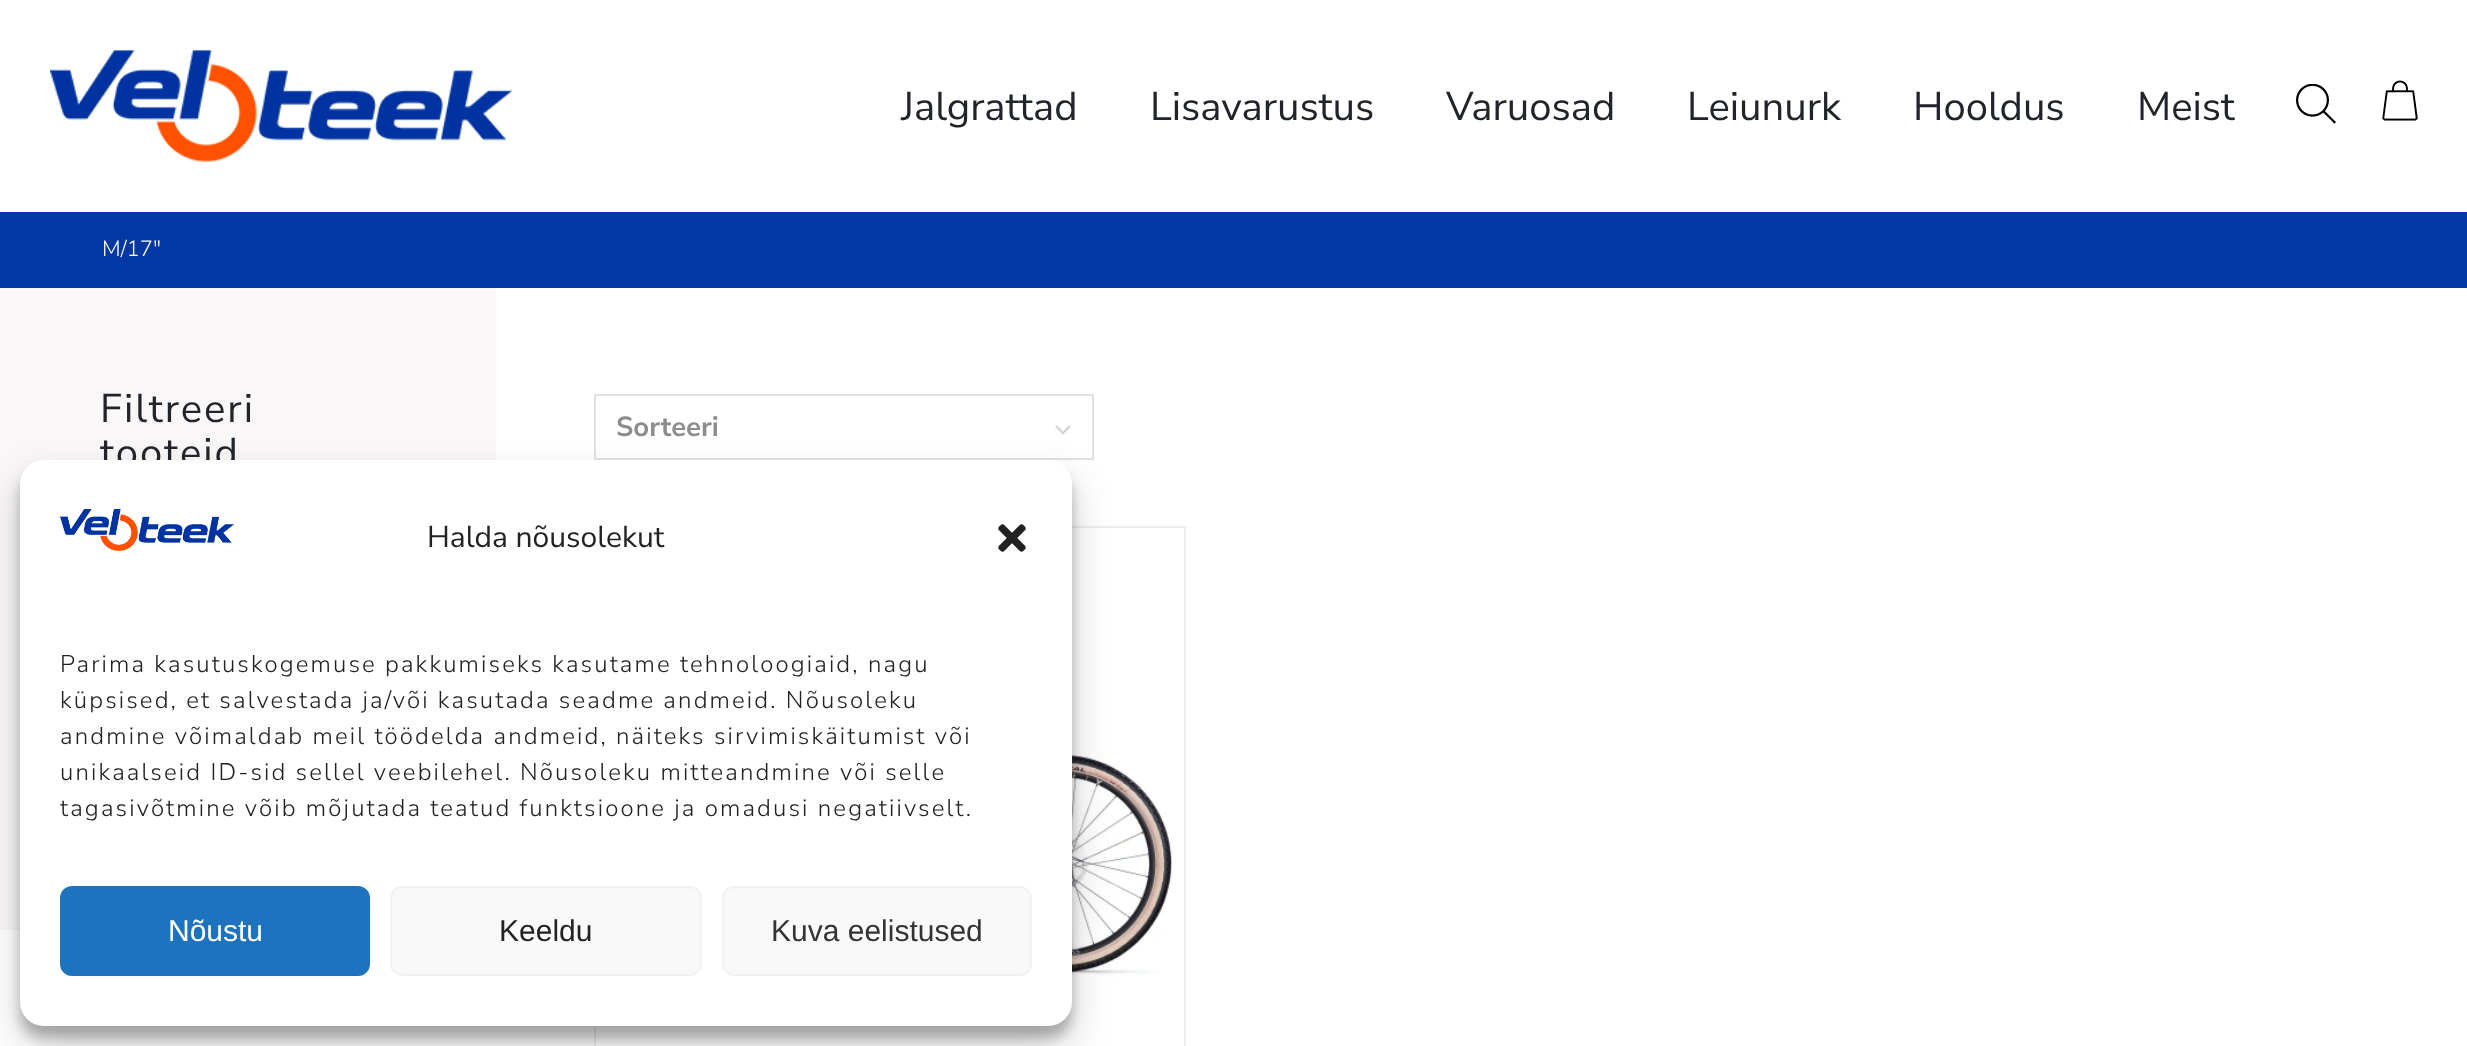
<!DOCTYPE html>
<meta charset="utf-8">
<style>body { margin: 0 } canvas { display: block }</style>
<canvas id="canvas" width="2467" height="1046"></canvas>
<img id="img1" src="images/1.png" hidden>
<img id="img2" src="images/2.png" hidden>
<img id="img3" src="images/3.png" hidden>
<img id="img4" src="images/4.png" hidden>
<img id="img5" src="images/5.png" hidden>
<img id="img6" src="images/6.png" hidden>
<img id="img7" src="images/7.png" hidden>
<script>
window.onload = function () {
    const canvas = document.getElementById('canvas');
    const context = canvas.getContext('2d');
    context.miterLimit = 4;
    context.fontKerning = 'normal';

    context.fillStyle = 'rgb(255, 255, 255)';
    context.fillRect(0, 0, 2467, 1046);
    context.drawImage(document.getElementById('img1'), 50, 50, 462, 112);
    context.drawImage(document.getElementById('img2'), 2296, 84, 40, 40);
    context.drawImage(document.getElementById('img3'), 2382, 80, 36, 41);
    context.fillStyle = 'rgb(3, 55, 163)';
    context.fillRect(0, 212, 2467, 76);
    context.fillStyle = 'rgb(249, 247, 247)';
    context.fillRect(0, 288, 496, 642);
    context.drawImage(document.getElementById('img4'), 1055, 425, 16, 10);
    context.strokeStyle = 'rgb(225, 225, 225)';
    context.lineWidth = 2;
    context.strokeRect(595, 395, 498, 64);
    context.strokeStyle = 'rgb(238, 238, 238)';
    context.strokeRect(595, 527, 590, 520);
    context.drawImage(document.getElementById('img5'), 1072, 664, 101, 313);
    context.fillStyle = 'rgba(0, 0, 0, 0.23)';
    context.filter = 'blur(6px)';
    context.beginPath();
    context.roundRect(20, 472, 1052, 566, 24);
    context.fill();
    context.filter = 'none';
    context.fillStyle = 'rgba(0, 0, 0, 0.19)';
    context.filter = 'blur(20px)';
    context.beginPath();
    context.roundRect(20, 480, 1052, 566, 24);
    context.fill();
    context.filter = 'none';
    context.font = '40px Nunito Sans';
    context.fillStyle = 'rgb(33, 37, 41)';
    context.fillText('Jalgrattad', 901, 120);
    context.fillText('Lisavarustus', 1150, 120);
    context.fillText('Varuosad', 1446, 120);
    context.fillText('Leiunurk', 1687, 120);
    context.fillText('Hooldus', 1913, 120);
    context.fillText('Meist', 2137, 120);
    context.font = '300 22px Nunito Sans';
    context.fillStyle = 'rgb(255, 255, 255)';
    context.fillText('M/17"', 102, 256);
    context.letterSpacing = '2px';
    context.font = '40px Nunito Sans';
    context.fillStyle = 'rgb(33, 37, 41)';
    context.fillText('Filtreeri', 100, 422);
    context.fillText('tooteid', 100, 466);
    context.letterSpacing = '0px';
    context.font = 'bold 27.5px Nunito Sans';
    context.fillStyle = 'rgb(141, 141, 141)';
    context.fillText('Sorteeri', 616, 436);
    context.fillStyle = 'rgb(255, 255, 255)';
    context.beginPath();
    context.roundRect(20, 460, 1052, 566, 24);
    context.fill();
    context.drawImage(document.getElementById('img6'), 60, 509, 174, 43);
    context.font = '30px Nunito Sans';
    context.fillStyle = 'rgb(34, 34, 34)';
    context.fillText('Halda nõusolekut', 427, 547);
    context.drawImage(document.getElementById('img7'), 998, 524, 28, 28);
    context.letterSpacing = '2.15px';
    context.font = '300 24px Nunito Sans';
    context.fillText('Parima kasutuskogemuse pakkumiseks kasutame tehnoloogiaid, nagu', 60, 672);
    context.fillText('küpsised, et salvestada ja/või kasutada seadme andmeid. Nõusoleku', 60, 708);
    context.fillText('andmine võimaldab meil töödelda andmeid, näiteks sirvimiskäitumist või', 60, 744);
    context.fillText('unikaalseid ID-sid sellel veebilehel. Nõusoleku mitteandmine või selle', 60, 780);
    context.fillText('tagasivõtmine võib mõjutada teatud funktsioone ja omadusi negatiivselt.', 60, 816);
    context.fillStyle = 'rgb(30, 115, 190)';
    context.beginPath();
    context.roundRect(61, 887, 308, 88, 11);
    context.fill();
    context.strokeStyle = 'rgb(30, 115, 190)';
    context.stroke();
    context.letterSpacing = '0px';
    context.font = '30px Liberation Sans';
    context.fillStyle = 'rgb(255, 255, 255)';
    context.fillText('Nõustu', 168, 941);
    context.fillStyle = 'rgb(249, 249, 249)';
    context.beginPath();
    context.roundRect(391, 887, 310, 88, 11);
    context.fill();
    context.strokeStyle = 'rgb(242, 242, 242)';
    context.stroke();
    context.fillStyle = 'rgb(34, 34, 34)';
    context.fillText('Keeldu', 499, 941);
    context.fillStyle = 'rgb(249, 249, 249)';
    context.beginPath();
    context.roundRect(723, 887, 308, 88, 11);
    context.fill();
    context.stroke();
    context.fillStyle = 'rgb(51, 51, 51)';
    context.fillText('Kuva eelistused', 771, 941);
};
</script>
